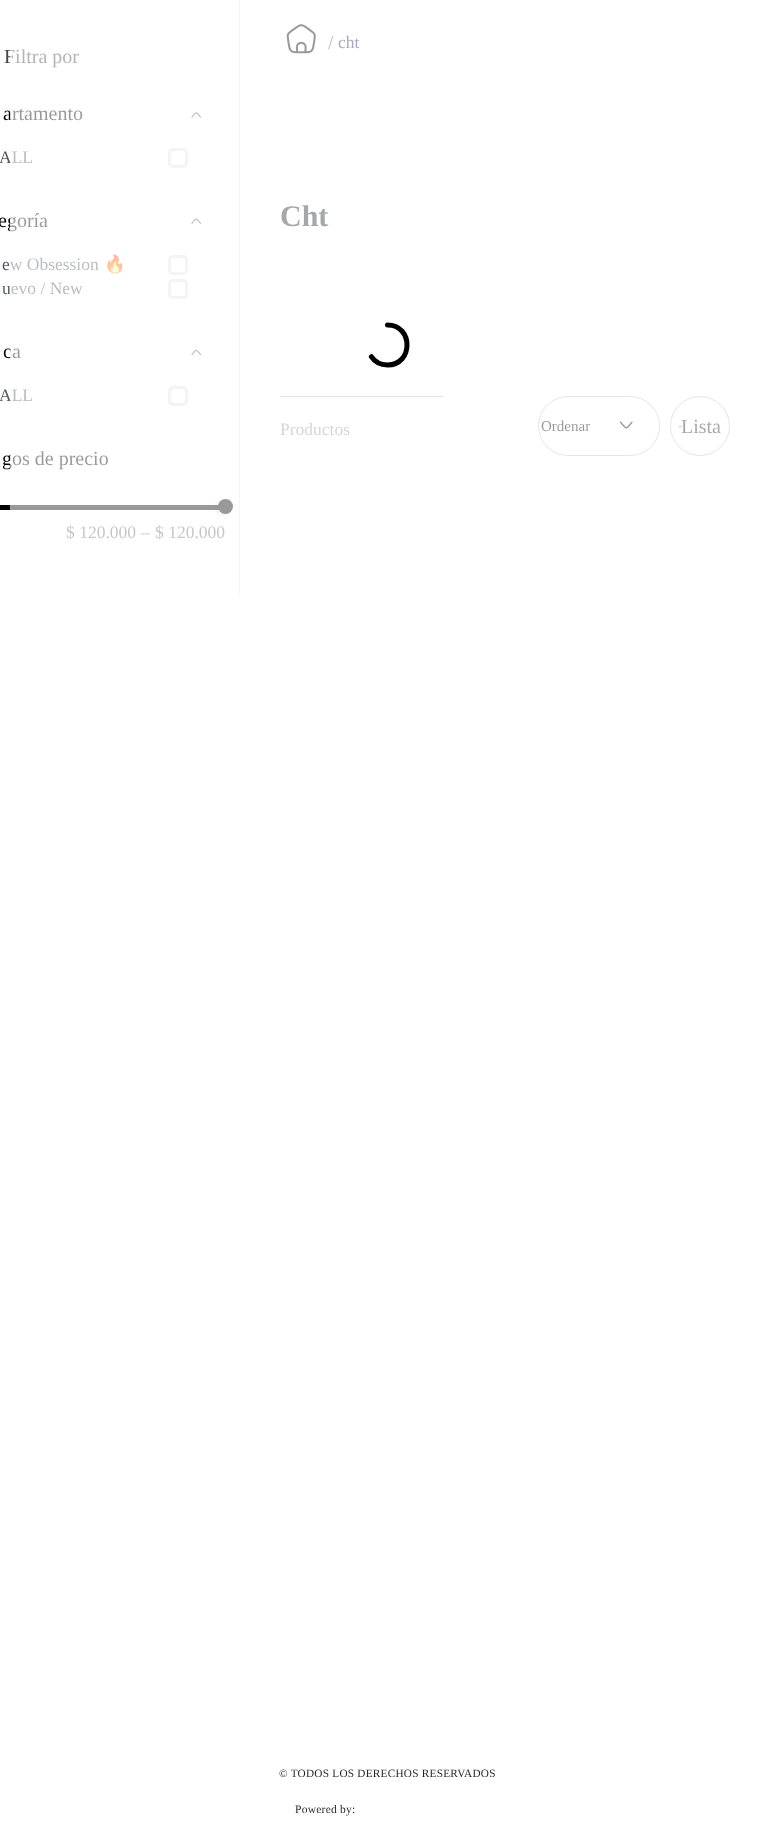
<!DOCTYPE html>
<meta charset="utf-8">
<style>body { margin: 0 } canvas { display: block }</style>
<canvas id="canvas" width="773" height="1838"></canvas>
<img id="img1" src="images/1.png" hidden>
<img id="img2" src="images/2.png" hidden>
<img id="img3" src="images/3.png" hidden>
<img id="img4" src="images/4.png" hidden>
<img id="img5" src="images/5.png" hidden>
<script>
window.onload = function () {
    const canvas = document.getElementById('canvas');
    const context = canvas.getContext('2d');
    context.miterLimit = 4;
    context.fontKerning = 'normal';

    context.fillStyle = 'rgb(255, 255, 255)';
    context.fillRect(0, 0, 773, 1838);
    context.fillStyle = 'rgb(231, 231, 231)';
    context.fillRect(239, 0, 1, 595);
    context.drawImage(document.getElementById('img1'), 191, 112, 11, 6);
    context.beginPath();
    context.roundRect(169.5, 149.5, 17, 17, 3.5);
    context.strokeStyle = 'rgb(227, 228, 230)';
    context.lineWidth = 3;
    context.stroke();
    context.drawImage(document.getElementById('img2'), 191, 218, 11, 6);
    context.beginPath();
    context.roundRect(169.5, 256.5, 17, 17, 3.5);
    context.stroke();
    context.beginPath();
    context.roundRect(169.5, 280.5, 17, 17, 3.5);
    context.stroke();
    context.drawImage(document.getElementById('img3'), 191, 349, 11, 7);
    context.beginPath();
    context.roundRect(169.5, 387.5, 17, 17, 3.5);
    context.stroke();
    context.fillStyle = 'rgb(0, 0, 0)';
    context.fillRect(0, 505, 225, 5);
    context.fillStyle = 'rgba(0, 0, 0, 0.15)';
    context.filter = 'blur(2px)';
    context.beginPath();
    context.roundRect(216, 500, 15, 15, 7.5);
    context.fill();
    context.filter = 'none';
    context.fillStyle = 'rgb(0, 0, 0)';
    context.beginPath();
    context.arc(225.5, 506.5, 7.5, 0, 2 * Math.PI);
    context.fill();
    context.drawImage(document.getElementById('img4'), 286, 24, 30, 30);
    context.fillStyle = 'rgb(188, 190, 192)';
    context.fillRect(280, 396, 163, 1);
    context.fillStyle = 'rgb(242, 244, 245)';
    context.fillRect(280, 398, 163, 1);
    context.beginPath();
    context.roundRect(538.5, 396.5, 121, 59, 29.5);
    context.strokeStyle = 'rgb(188, 190, 192)';
    context.lineWidth = 1;
    context.stroke();
    context.drawImage(document.getElementById('img5'), 620, 421, 13, 8);
    context.beginPath();
    context.arc(700, 426, 29.5, 0, 2 * Math.PI);
    context.stroke();
    context.font = '20px Liberation Serif';
    context.fillStyle = 'rgb(69, 69, 69)';
    context.fillText('Filtra por', 4, 63);
    context.fillStyle = 'rgb(0, 0, 0)';
    context.fillText('artamento', 3, 120);
    context.font = '17.5px Liberation Serif';
    context.fillStyle = 'rgb(82, 90, 98)';
    context.fillText('ALL', -1, 163);
    context.font = '20px Liberation Serif';
    context.fillStyle = 'rgb(0, 0, 0)';
    context.fillText('egoría', -2, 227);
    context.font = '17.5px Liberation Serif';
    context.fillStyle = 'rgb(82, 90, 98)';
    context.fillText('ew Obsession', 2, 270);
    context.font = '17.5px Noto Color Emoji';
    context.fillText('🔥', 104, 270);
    context.font = '17.5px Liberation Serif';
    context.fillText('uevo / New', 2, 294);
    context.font = '20px Liberation Serif';
    context.fillStyle = 'rgb(0, 0, 0)';
    context.fillText('ca', 3, 358);
    context.font = '17.5px Liberation Serif';
    context.fillStyle = 'rgb(82, 90, 98)';
    context.fillText('ALL', -1, 401);
    context.font = '20px Liberation Serif';
    context.fillStyle = 'rgb(0, 0, 0)';
    context.fillText('gos de precio', 2, 465);
    context.font = '17.5px Liberation Serif';
    context.fillStyle = 'rgb(114, 114, 115)';
    context.fillText('$ 120.000', 66, 538);
    context.fillText('–', 141, 538);
    context.fillText('$ 120.000', 155, 538);
    context.font = '20px Liberation Serif';
    context.fillStyle = 'rgb(82, 90, 98)';
    context.fillText('/', 328, 49);
    context.font = '17.5px Liberation Serif';
    context.fillStyle = 'rgb(50, 37, 81)';
    context.fillText('cht', 338, 48);
    context.font = 'bold 30px Liberation Serif';
    context.fillStyle = 'rgb(31, 35, 39)';
    context.fillText('Cht', 280, 226);
    context.font = '17.5px Liberation Serif';
    context.fillStyle = 'rgb(151, 152, 153)';
    context.fillText('Productos', 280, 435);
    context.font = '15px Liberation Serif';
    context.fillStyle = 'rgb(0, 0, 0)';
    context.fillText('Ordenar', 541, 431);
    context.font = '20px Liberation Serif';
    context.fillStyle = 'rgb(31, 35, 39)';
    context.fillText('Lista', 681, 433);
    context.fillStyle = 'rgb(198, 201, 203)';
    context.fillRect(679, 425, 3, 3);
    context.fillStyle = 'rgba(255, 255, 255, 0.6)';
    context.fillRect(10, 0, 720, 595);
    context.beginPath();
    context.moveTo(387.5, 325);
    context.bezierCurveTo(413.5, 325, 413.5, 365, 387.5, 365);
    context.bezierCurveTo(361.5, 365, 361.5, 325, 387.5, 325);
    context.closePath();
    context.strokeStyle = 'rgb(0, 0, 0)';
    context.lineWidth = 5;
    context.lineCap = 'round';
    context.setLineDash([0, 0, 81.68, 125.66]);
    context.lineDashOffset = 0.5;
    context.stroke();
    context.letterSpacing = '0.25px';
    context.font = '11.25px Liberation Serif';
    context.fillStyle = 'rgb(31, 35, 39)';
    context.fillText('© TODOS LOS DERECHOS RESERVADOS', 279, 1777);
    context.font = '11.5px Liberation Serif';
    context.fillText('Powered by:', 295, 1813);
};
</script>
